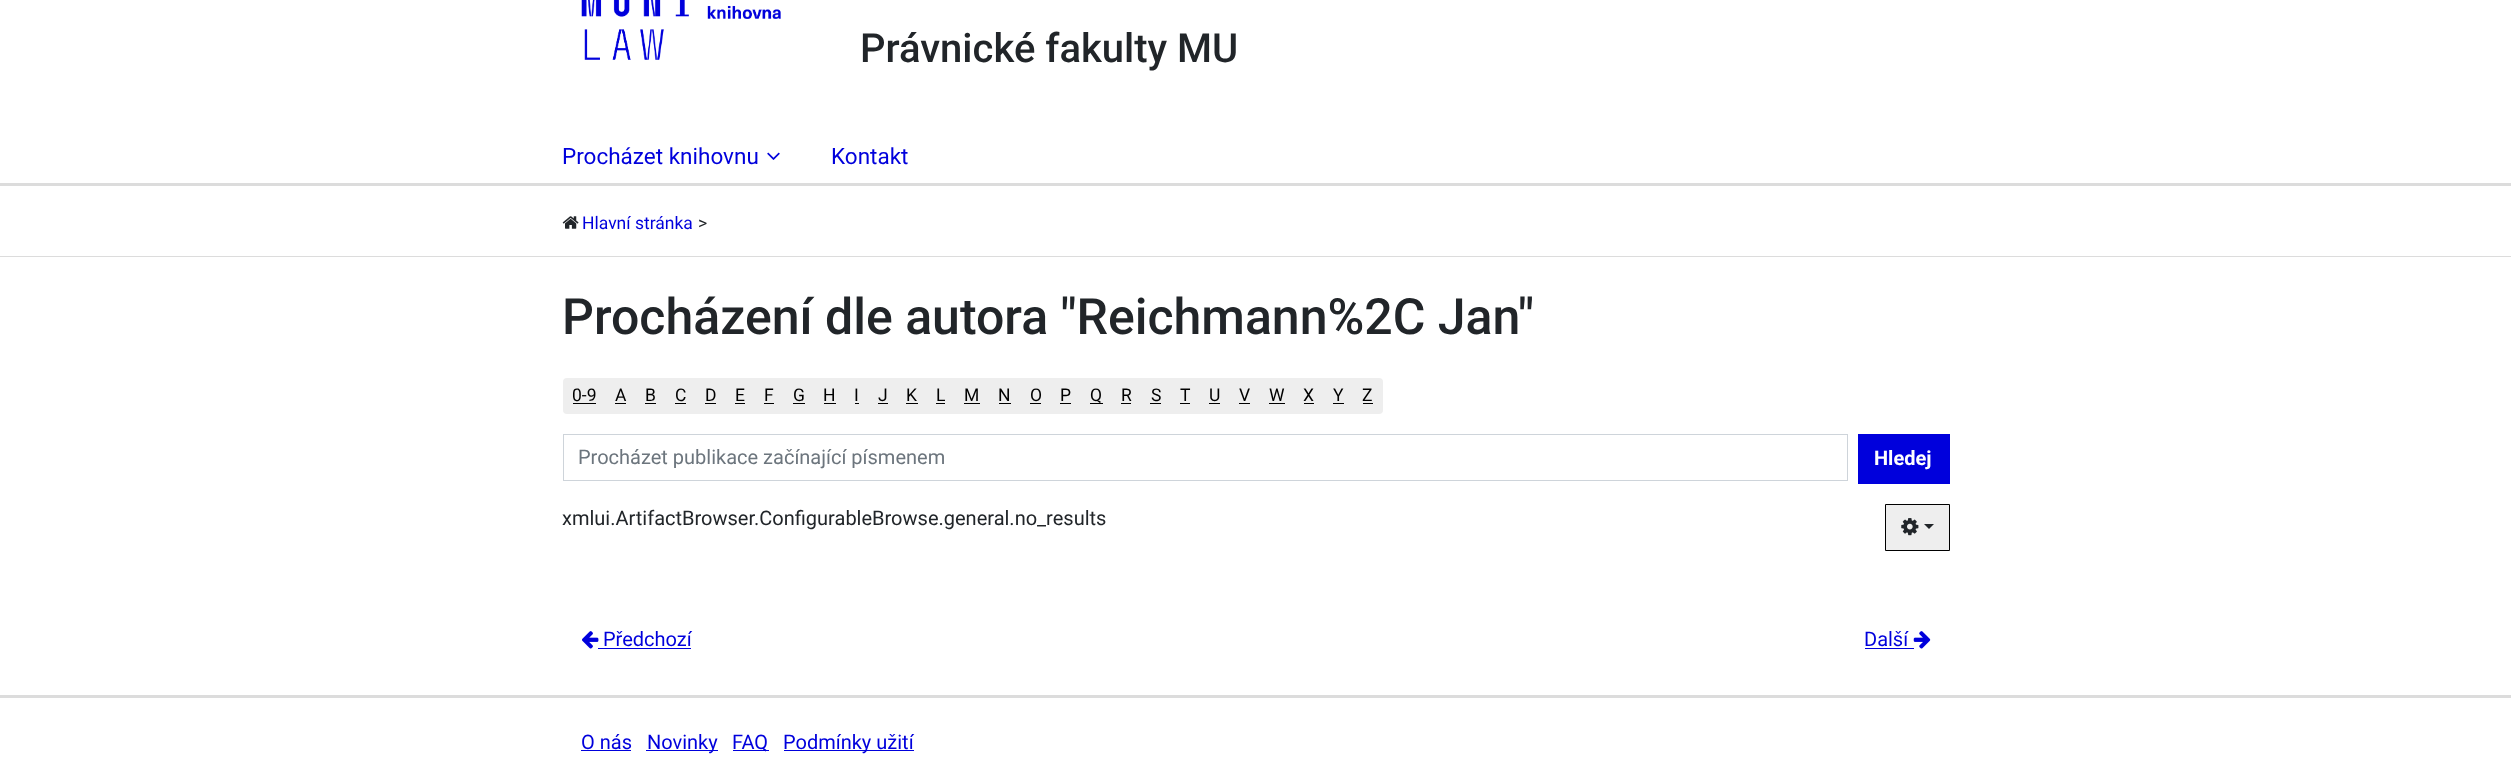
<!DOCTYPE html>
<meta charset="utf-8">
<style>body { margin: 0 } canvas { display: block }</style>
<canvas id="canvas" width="2511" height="768"></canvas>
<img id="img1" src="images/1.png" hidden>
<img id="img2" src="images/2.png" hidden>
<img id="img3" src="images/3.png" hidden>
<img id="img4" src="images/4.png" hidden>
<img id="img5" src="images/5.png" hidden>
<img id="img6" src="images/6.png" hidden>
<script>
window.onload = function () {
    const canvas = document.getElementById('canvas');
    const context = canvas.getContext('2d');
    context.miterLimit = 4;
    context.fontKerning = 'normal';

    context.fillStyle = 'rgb(255, 255, 255)';
    context.fillRect(0, 0, 2511, 768);
    context.drawImage(document.getElementById('img1'), 581, 0, 200, 60);
    context.drawImage(document.getElementById('img2'), 767, 152, 13, 8);
    context.fillStyle = 'rgb(220, 220, 220)';
    context.fillRect(0, 183, 2511, 3);
    context.drawImage(document.getElementById('img3'), 562, 216, 17, 13);
    context.fillRect(0, 256, 2511, 1);
    context.fillStyle = 'rgb(238, 238, 238)';
    context.beginPath();
    context.roundRect(563, 378, 43, 36, [4, 0, 0, 4]);
    context.fill();
    context.fillStyle = 'rgb(0, 0, 0)';
    context.fillRect(573, 403, 23, 1);
    context.fillStyle = 'rgb(238, 238, 238)';
    context.fillRect(606, 378, 747, 36);
    context.fillStyle = 'rgb(0, 0, 0)';
    context.fillRect(615, 403, 11, 1);
    context.fillRect(645, 403, 11, 1);
    context.fillRect(675, 403, 11, 1);
    context.fillRect(705, 403, 11, 1);
    context.fillRect(735, 403, 10, 1);
    context.fillRect(764, 403, 10, 1);
    context.fillRect(793, 403, 12, 1);
    context.fillRect(824, 403, 12, 1);
    context.fillRect(855, 403, 4, 1);
    context.fillRect(878, 403, 10, 1);
    context.fillRect(906, 403, 12, 1);
    context.fillRect(936, 403, 9, 1);
    context.fillRect(964, 403, 16, 1);
    context.fillRect(999, 403, 12, 1);
    context.fillRect(1030, 403, 11, 1);
    context.fillRect(1060, 403, 11, 1);
    context.fillRect(1090, 403, 13, 1);
    context.fillRect(1121, 403, 10, 1);
    context.fillRect(1150, 403, 11, 1);
    context.fillRect(1180, 403, 10, 1);
    context.fillRect(1209, 403, 11, 1);
    context.fillRect(1239, 403, 11, 1);
    context.fillRect(1269, 403, 16, 1);
    context.fillRect(1304, 403, 10, 1);
    context.fillRect(1333, 403, 11, 1);
    context.fillStyle = 'rgb(238, 238, 238)';
    context.beginPath();
    context.roundRect(1353, 378, 30, 36, [0, 4, 4, 0]);
    context.fill();
    context.fillStyle = 'rgb(0, 0, 0)';
    context.fillRect(1363, 403, 10, 1);
    context.strokeStyle = 'rgb(206, 212, 218)';
    context.strokeRect(563.5, 434.5, 1284, 46);
    context.fillStyle = 'rgb(0, 0, 220)';
    context.fillRect(1858, 434, 92, 50);
    context.fillStyle = 'rgb(238, 238, 238)';
    context.beginPath();
    context.rect(1885.5, 504.5, 64, 46);
    context.fill();
    context.strokeStyle = 'rgb(0, 0, 0)';
    context.stroke();
    context.drawImage(document.getElementById('img4'), 1901, 518, 18, 18);
    context.fillStyle = 'rgb(33, 37, 41)';
    context.beginPath();
    context.moveTo(1924, 524);
    context.lineTo(1934, 524);
    context.lineTo(1929, 529);
    context.closePath();
    context.fill();
    context.drawImage(document.getElementById('img5'), 582, 631, 17, 18);
    context.fillStyle = 'rgb(0, 0, 220)';
    context.fillRect(598, 648, 93, 1);
    context.fillRect(1865, 648, 49, 1);
    context.drawImage(document.getElementById('img6'), 1913, 631, 18, 18);
    context.fillStyle = 'rgb(220, 220, 220)';
    context.fillRect(0, 695, 2511, 3);
    context.fillStyle = 'rgb(0, 0, 220)';
    context.fillRect(581, 750, 50, 1);
    context.fillRect(646, 750, 72, 1);
    context.fillRect(733, 750, 36, 1);
    context.fillRect(784, 750, 130, 1);
    context.font = '500 40px Roboto';
    context.fillStyle = 'rgb(33, 37, 41)';
    context.fillText('Právnické fakulty MU', 860, 62);
    context.font = '22.5px Roboto';
    context.fillStyle = 'rgb(0, 0, 220)';
    context.fillText('Procházet knihovnu', 562, 164);
    context.fillText('Kontakt', 831, 164);
    context.font = '17.5px Roboto';
    context.fillText('Hlavní stránka', 582, 229);
    context.fillStyle = 'rgb(33, 37, 41)';
    context.fillText('>', 698, 229);
    context.font = '500 50px Roboto';
    context.fillText('Procházení dle autora "Reichmann%2C Jan"', 562, 334);
    context.font = '17.5px Roboto';
    context.fillStyle = 'rgb(0, 0, 0)';
    context.fillText('0-9', 572, 401);
    context.fillText('A', 615, 401);
    context.fillText('B', 645, 401);
    context.fillText('C', 675, 401);
    context.fillText('D', 705, 401);
    context.fillText('E', 735, 401);
    context.fillText('F', 764, 401);
    context.fillText('G', 793, 401);
    context.fillText('H', 823, 401);
    context.fillText('I', 854, 401);
    context.fillText('J', 878, 401);
    context.fillText('K', 906, 401);
    context.fillText('L', 936, 401);
    context.fillText('M', 964, 401);
    context.fillText('N', 998, 401);
    context.fillText('O', 1030, 401);
    context.fillText('P', 1060, 401);
    context.fillText('Q', 1090, 401);
    context.fillText('R', 1121, 401);
    context.fillText('S', 1151, 401);
    context.fillText('T', 1180, 401);
    context.fillText('U', 1209, 401);
    context.fillText('V', 1239, 401);
    context.fillText('W', 1269, 401);
    context.fillText('X', 1303, 401);
    context.fillText('Y', 1333, 401);
    context.fillText('Z', 1362, 401);
    context.font = '20px Roboto';
    context.fillStyle = 'rgb(108, 117, 125)';
    context.fillText('Procházet publikace začínající písmenem', 578, 464);
    context.font = 'bold 20px Roboto';
    context.fillStyle = 'rgb(255, 255, 255)';
    context.fillText('Hledej', 1874, 465);
    context.font = '20px Roboto';
    context.fillStyle = 'rgb(33, 37, 41)';
    context.fillText('xmlui.ArtifactBrowser.ConfigurableBrowse.general.no_results', 562, 525);
    context.fillStyle = 'rgb(0, 0, 220)';
    context.fillText('Předchozí', 603, 646);
    context.fillText('Další', 1864, 646);
    context.fillText('O nás', 581, 749);
    context.fillText('Novinky', 647, 749);
    context.fillText('FAQ', 732, 749);
    context.fillText('Podmínky užití', 783, 749);
};
</script>
